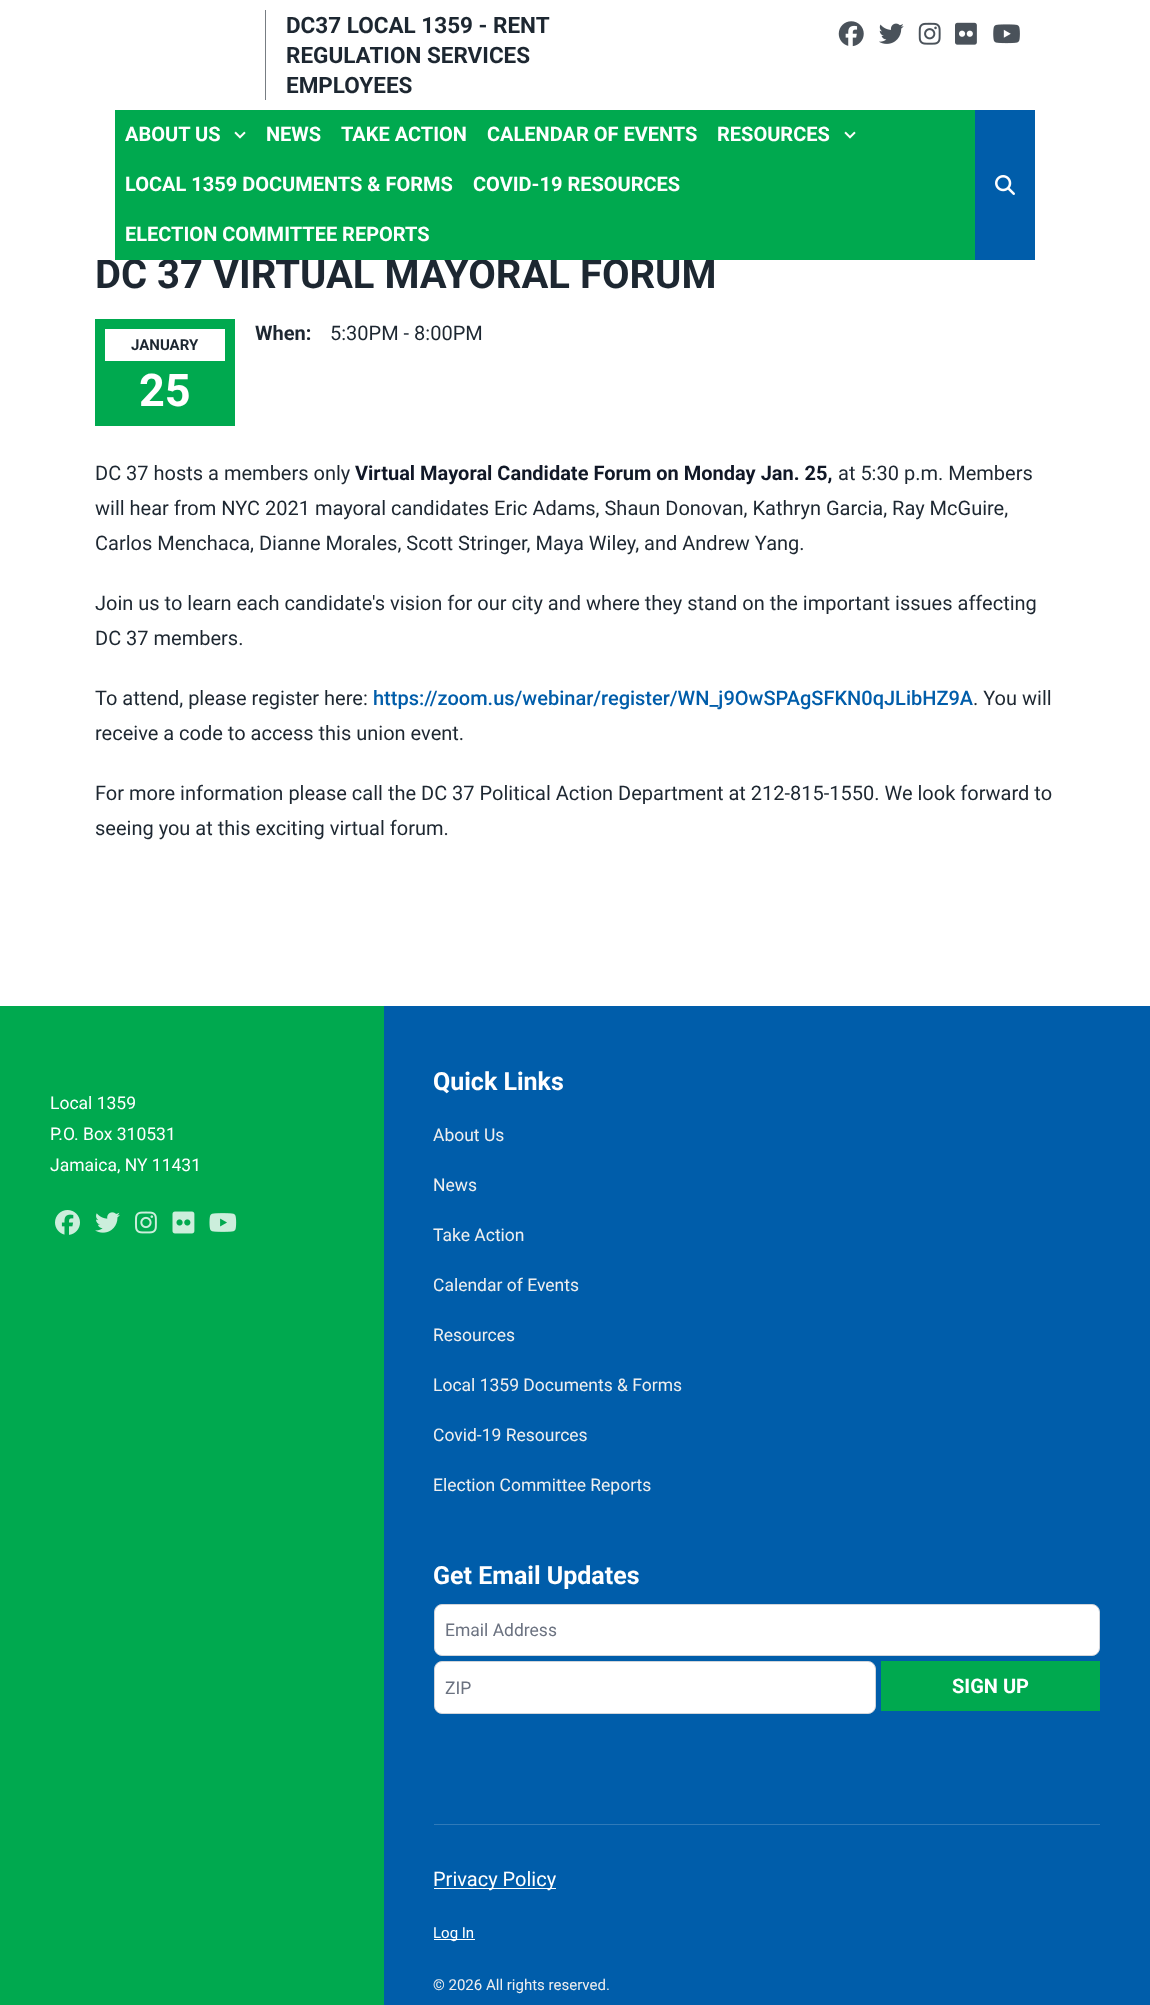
<!DOCTYPE html>
<meta charset="utf-8">
<style>body { margin: 0 } canvas { display: block }</style>
<canvas id="canvas" width="1150" height="2005"></canvas>
<img id="img1" src="images/1.png" hidden>
<img id="img2" src="images/2.png" hidden>
<img id="img3" src="images/3.png" hidden>
<img id="img4" src="images/4.png" hidden>
<img id="img5" src="images/5.png" hidden>
<img id="img6" src="images/7.png" hidden>
<img id="img7" src="images/8.png" hidden>
<img id="img8" src="images/9.png" hidden>
<img id="img9" src="images/10.png" hidden>
<img id="img10" src="images/11.png" hidden>
<img id="img11" src="images/12.png" hidden>
<img id="img12" src="images/6.png" hidden>
<script>
window.onload = function () {
    const canvas = document.getElementById('canvas');
    const context = canvas.getContext('2d');
    context.miterLimit = 4;
    context.fontKerning = 'normal';

    context.fillStyle = 'rgb(255, 255, 255)';
    context.fillRect(0, 0, 1150, 2005);
    context.fillStyle = 'rgb(119, 125, 131)';
    context.fillRect(265, 10, 1, 90);
    context.drawImage(document.getElementById('img1'), 838, 21, 26, 26);
    context.drawImage(document.getElementById('img2'), 879, 23, 25, 21);
    context.drawImage(document.getElementById('img3'), 918, 22, 23, 23);
    context.drawImage(document.getElementById('img4'), 955, 22, 22, 23);
    context.drawImage(document.getElementById('img5'), 993, 24, 27, 20);
    context.fillStyle = 'rgb(0, 93, 170)';
    context.fillRect(975, 110, 60, 150);
    context.drawImage(document.getElementById('img6'), 995, 175, 20, 20);
    context.fillStyle = 'rgb(0, 169, 79)';
    context.fillRect(95, 319, 140, 107);
    context.fillStyle = 'rgb(255, 255, 255)';
    context.fillRect(105, 329, 120, 32);
    context.fillStyle = 'rgb(0, 169, 79)';
    context.fillRect(0, 1006, 384, 999);
    context.drawImage(document.getElementById('img7'), 55, 1210, 25, 25);
    context.drawImage(document.getElementById('img8'), 95, 1212, 25, 21);
    context.drawImage(document.getElementById('img9'), 135, 1211, 22, 23);
    context.drawImage(document.getElementById('img10'), 172, 1211, 23, 23);
    context.drawImage(document.getElementById('img11'), 209, 1213, 28, 19);
    context.fillStyle = 'rgb(0, 93, 170)';
    context.fillRect(384, 1006, 766, 999);
    context.fillStyle = 'rgb(255, 255, 255)';
    context.beginPath();
    context.roundRect(434.5, 1604.5, 665, 51, 7.5);
    context.fill();
    context.strokeStyle = 'rgb(209, 213, 219)';
    context.stroke();
    context.beginPath();
    context.roundRect(434.5, 1661.5, 441, 52, 7.5);
    context.fill();
    context.stroke();
    context.fillStyle = 'rgb(0, 169, 79)';
    context.fillRect(881, 1661, 219, 50);
    context.fillStyle = 'rgb(48, 122, 184)';
    context.fillRect(434, 1824, 666, 1);
    context.fillStyle = 'rgb(255, 255, 255)';
    context.fillRect(434, 1888, 122, 1);
    context.fillRect(434, 1939, 41, 1);
    context.font = 'bold 22.5px Roboto';
    context.fillStyle = 'rgb(29, 39, 49)';
    context.fillText('DC37 LOCAL 1359 - RENT', 286, 33);
    context.fillText('REGULATION SERVICES', 286, 63);
    context.fillText('EMPLOYEES', 286, 93);
    context.font = 'bold 40px Roboto';
    context.fillText('DC 37 VIRTUAL MAYORAL FORUM', 95, 288);
    context.fillStyle = 'rgb(255, 255, 255)';
    context.fillRect(97, 259, 617, 1);
    context.fillStyle = 'rgb(0, 169, 79)';
    context.fillRect(115, 110, 860, 150);
    context.drawImage(document.getElementById('img12'), 844, 131, 12, 8);
    context.font = 'bold 20px Roboto';
    context.fillStyle = 'rgb(255, 255, 255)';
    context.fillText('RESOURCES', 717, 141);
    context.drawImage(document.getElementById('img12'), 234, 131, 12, 8);
    context.fillText('ABOUT US', 125, 141);
    context.fillText('ELECTION COMMITTEE REPORTS', 125, 241);
    context.fillText('COVID-19 RESOURCES', 473, 191);
    context.fillText('LOCAL 1359 DOCUMENTS & FORMS', 125, 191);
    context.fillText('CALENDAR OF EVENTS', 487, 141);
    context.fillText('TAKE ACTION', 341, 141);
    context.fillText('NEWS', 266, 141);
    context.fillStyle = 'rgb(29, 39, 49)';
    context.fillText('When:', 255, 340);
    context.font = '20px Roboto';
    context.fillText('5:30PM - 8:00PM', 330, 340);
    context.font = 'bold 15px Roboto';
    context.fillText('JANUARY', 131, 350);
    context.font = 'bold 45px Roboto';
    context.fillStyle = 'rgb(255, 255, 255)';
    context.fillText('25', 139, 406);
    context.font = '20px Roboto';
    context.fillStyle = 'rgb(29, 39, 49)';
    context.fillText('DC 37 hosts a members only', 95, 480);
    context.font = 'bold 20px Roboto';
    context.fillStyle = 'rgb(17, 24, 39)';
    context.fillText('Virtual Mayoral Candidate Forum on Monday Jan. 25,', 355, 480);
    context.font = '20px Roboto';
    context.fillStyle = 'rgb(29, 39, 49)';
    context.fillText('at 5:30 p.m. Members', 838, 480);
    context.fillText('will hear from NYC 2021 mayoral candidates Eric Adams, Shaun Donovan, Kathryn Garcia, Ray McGuire,', 95, 515);
    context.fillText('Carlos Menchaca, Dianne Morales, Scott Stringer, Maya Wiley, and Andrew Yang.', 95, 550);
    context.fillText('Join us to learn each candidate\'s vision for our city and where they stand on the important issues affecting', 95, 610);
    context.fillText('DC 37 members.', 95, 645);
    context.fillText('To attend, please register here:', 95, 705);
    context.font = '500 20px Roboto';
    context.fillStyle = 'rgb(0, 93, 170)';
    context.fillText('https://zoom.us/webinar/register/WN_j9OwSPAgSFKN0qJLibHZ9A', 373, 705);
    context.font = '20px Roboto';
    context.fillStyle = 'rgb(29, 39, 49)';
    context.fillText('. You will', 973, 705);
    context.fillText('receive a code to access this union event.', 95, 740);
    context.fillText('For more information please call the DC 37 Political Action Department at 212-815-1550. We look forward to', 95, 800);
    context.fillText('seeing you at this exciting virtual forum.', 95, 835);
    context.font = '17.5px Roboto';
    context.fillStyle = 'rgb(255, 255, 255)';
    context.fillText('Local 1359', 50, 1109);
    context.fillText('P.O. Box 310531', 50, 1140);
    context.fillText('Jamaica, NY 11431', 50, 1171);
    context.font = 'bold 25px Roboto';
    context.fillText('Quick Links', 433, 1090);
    context.font = '17.5px Roboto';
    context.fillStyle = 'rgb(239, 239, 239)';
    context.fillText('About Us', 433, 1141);
    context.fillText('News', 433, 1191);
    context.fillText('Take Action', 433, 1241);
    context.fillText('Calendar of Events', 433, 1291);
    context.fillText('Resources', 433, 1341);
    context.fillText('Local 1359 Documents & Forms', 433, 1391);
    context.fillText('Covid-19 Resources', 433, 1441);
    context.fillText('Election Committee Reports', 433, 1491);
    context.font = 'bold 25px Roboto';
    context.fillStyle = 'rgb(255, 255, 255)';
    context.fillText('Get Email Updates', 433, 1584);
    context.font = '17.5px Roboto';
    context.fillStyle = 'rgb(107, 114, 128)';
    context.fillText('Email Address', 445, 1636);
    context.fillText('ZIP', 445, 1694);
    context.font = 'bold 20px Roboto';
    context.fillStyle = 'rgb(255, 255, 255)';
    context.fillText('SIGN UP', 952, 1693);
    context.font = '20px Roboto';
    context.fillText('Privacy Policy', 433, 1886);
    context.font = '15px Roboto';
    context.fillText('Log In', 433, 1938);
    context.fillStyle = 'rgb(239, 239, 239)';
    context.fillText('© 2026 All rights reserved.', 433, 1990);
};
</script>
